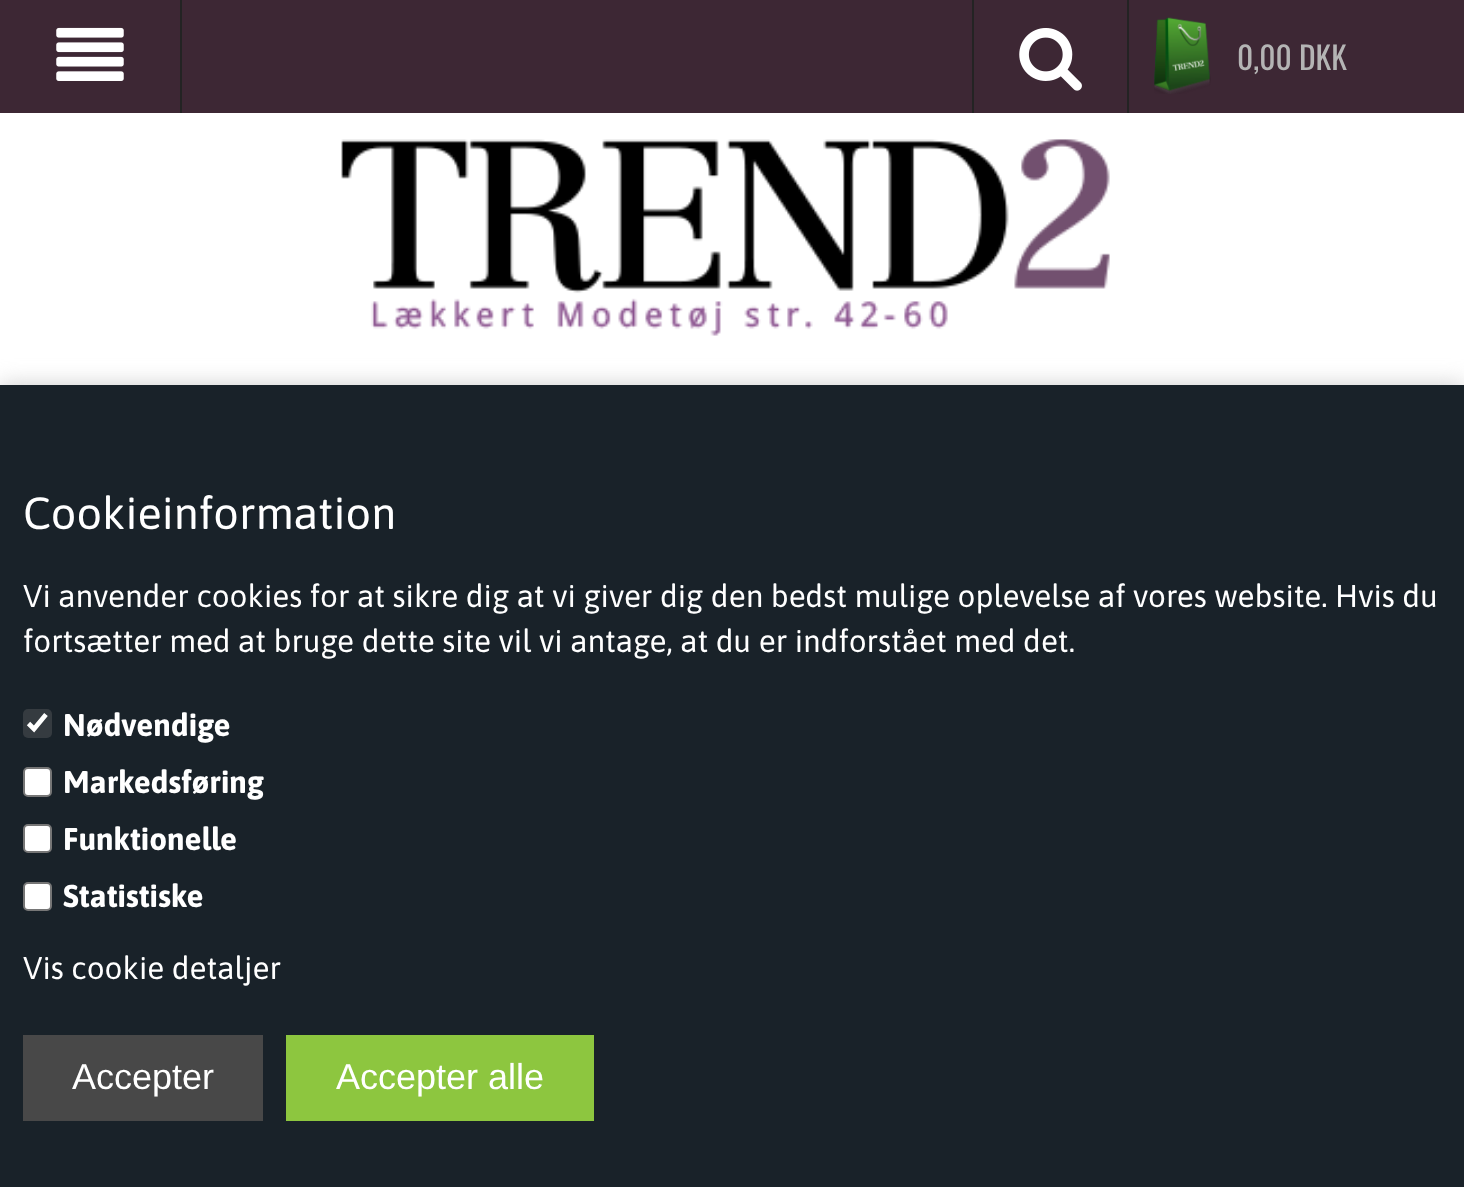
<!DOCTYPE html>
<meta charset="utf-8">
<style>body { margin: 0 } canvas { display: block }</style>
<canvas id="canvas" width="1464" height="1187"></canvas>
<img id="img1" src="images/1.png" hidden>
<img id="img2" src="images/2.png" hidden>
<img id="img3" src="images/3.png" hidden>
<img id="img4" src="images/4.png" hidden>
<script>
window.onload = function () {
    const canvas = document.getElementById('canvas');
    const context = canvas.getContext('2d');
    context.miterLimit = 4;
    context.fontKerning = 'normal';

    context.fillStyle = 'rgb(255, 255, 255)';
    context.fillRect(0, 0, 1464, 1187);
    context.fillStyle = 'rgb(61, 39, 52)';
    context.fillRect(0, 0, 1464, 113);
    context.fillStyle = 'rgb(35, 35, 35)';
    context.fillRect(180, 0, 2, 113);
    context.drawImage(document.getElementById('img1'), 56, 27, 68, 54);
    context.fillRect(972, 0, 2, 113);
    context.drawImage(document.getElementById('img2'), 1019, 28, 63, 63);
    context.drawImage(document.getElementById('img3'), 1154, 17, 57, 77);
    context.fillRect(1127, 0, 2, 113);
    context.drawImage(document.getElementById('img4'), 341, 139, 769, 197);
    context.fillStyle = 'rgb(204, 204, 204)';
    context.filter = 'blur(11px)';
    context.beginPath();
    context.rect(0, 385, 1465, 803);
    context.fill();
    context.filter = 'none';
    context.fillStyle = 'rgb(25, 34, 41)';
    context.fillRect(0, 385, 1464, 802);
    context.fillStyle = 'rgb(53, 59, 64)';
    context.beginPath();
    context.roundRect(23, 709, 29, 29, 5);
    context.fill();
    context.beginPath();
    context.moveTo(28.5, 723.5);
    context.lineTo(34, 729);
    context.lineTo(46, 714.5);
    context.strokeStyle = 'rgb(255, 255, 255)';
    context.lineWidth = 4.7;
    context.stroke();
    context.fillStyle = 'rgb(255, 255, 255)';
    context.beginPath();
    context.roundRect(24, 768, 27, 28, 4);
    context.fill();
    context.strokeStyle = 'rgb(118, 118, 118)';
    context.lineWidth = 2;
    context.stroke();
    context.beginPath();
    context.roundRect(24, 825, 27, 27, 4);
    context.fill();
    context.stroke();
    context.beginPath();
    context.roundRect(24, 883, 27, 27, 4);
    context.fill();
    context.stroke();
    context.fillStyle = 'rgb(72, 72, 72)';
    context.fillRect(23, 1035, 240, 86);
    context.fillStyle = 'rgb(141, 198, 63)';
    context.fillRect(286, 1035, 308, 86);
    context.font = '31.5px Oswald';
    context.fillStyle = 'rgb(180, 180, 180)';
    context.fillText('0,00 DKK', 1237, 70);
    context.font = '45px Asap';
    context.fillStyle = 'rgb(255, 255, 255)';
    context.fillText('Cookieinformation', 23, 529);
    context.font = '31.5px Asap';
    context.fillText('Vi anvender cookies for at sikre dig at vi giver dig den bedst mulige oplevelse af vores website. Hvis du', 23, 607);
    context.fillText('fortsætter med at bruge dette site vil vi antage, at du er indforstået med det.', 23, 652);
    context.font = 'bold 31.5px Asap';
    context.fillText('Nødvendige', 63, 736);
    context.fillText('Markedsføring', 63, 793);
    context.fillText('Funktionelle', 63, 850);
    context.fillText('Statistiske', 63, 907);
    context.font = '31.5px Asap';
    context.fillText('Vis cookie detaljer', 23, 979);
    context.font = '36px Liberation Sans';
    context.fillText('Accepter', 72, 1089);
    context.fillText('Accepter alle', 336, 1089);
};
</script>
